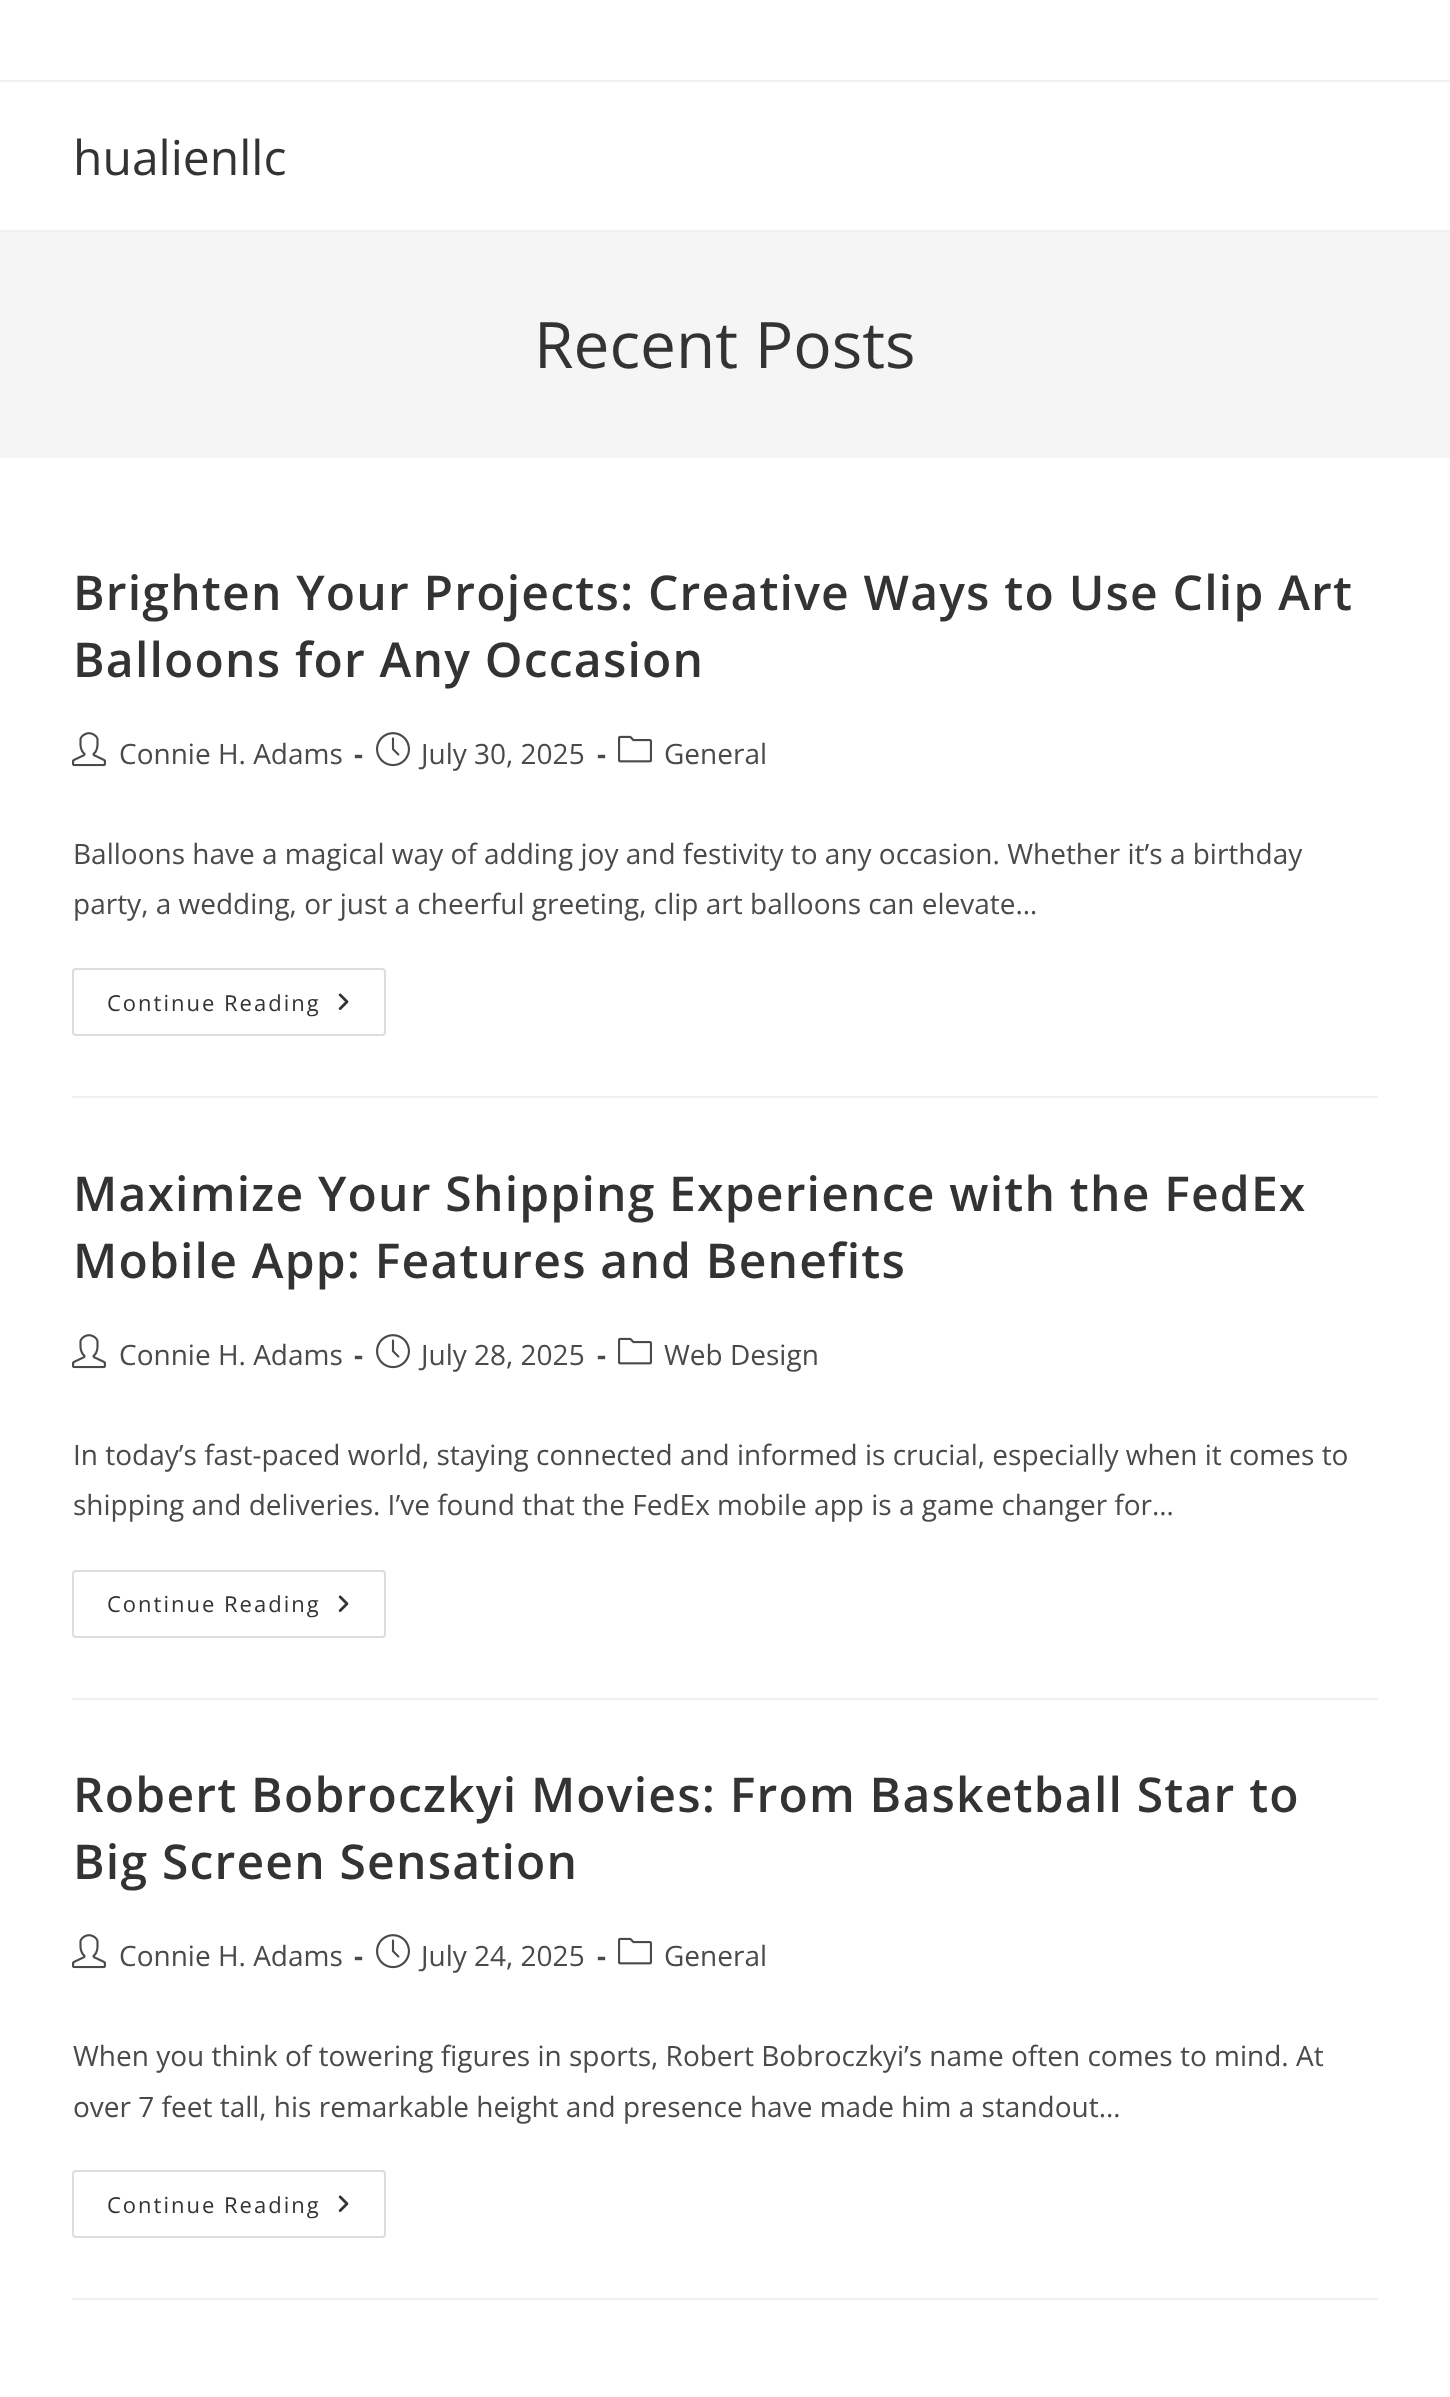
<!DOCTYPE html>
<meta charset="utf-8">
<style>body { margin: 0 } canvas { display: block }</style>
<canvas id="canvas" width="1450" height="2397"></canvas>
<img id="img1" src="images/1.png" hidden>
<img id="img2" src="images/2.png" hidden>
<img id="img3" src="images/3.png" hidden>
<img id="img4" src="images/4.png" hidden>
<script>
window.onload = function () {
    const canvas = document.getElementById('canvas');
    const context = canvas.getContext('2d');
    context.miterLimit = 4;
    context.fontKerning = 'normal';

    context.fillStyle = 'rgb(255, 255, 255)';
    context.fillRect(0, 0, 1450, 2397);
    context.fillStyle = 'rgb(241, 241, 241)';
    context.fillRect(0, 80, 1450, 2);
    context.fillRect(0, 230, 1450, 2);
    context.fillStyle = 'rgb(245, 245, 245)';
    context.fillRect(0, 232, 1450, 226);
    context.fillStyle = 'rgb(241, 241, 241)';
    context.fillRect(72, 1096, 1306, 2);
    context.drawImage(document.getElementById('img1'), 72, 732, 34, 35);
    context.drawImage(document.getElementById('img2'), 376, 732, 34, 35);
    context.drawImage(document.getElementById('img3'), 618, 735, 34, 28);
    context.beginPath();
    context.roundRect(73, 969, 312, 66, 3);
    context.strokeStyle = 'rgb(221, 221, 221)';
    context.lineWidth = 2;
    context.stroke();
    context.drawImage(document.getElementById('img4'), 338, 993, 11, 17);
    context.fillRect(72, 1698, 1306, 2);
    context.drawImage(document.getElementById('img1'), 72, 1334, 34, 35);
    context.drawImage(document.getElementById('img2'), 376, 1334, 34, 35);
    context.drawImage(document.getElementById('img3'), 618, 1337, 34, 28);
    context.beginPath();
    context.roundRect(73, 1571, 312, 66, 3);
    context.stroke();
    context.drawImage(document.getElementById('img4'), 338, 1595, 11, 17);
    context.fillRect(72, 2298, 1306, 2);
    context.drawImage(document.getElementById('img1'), 72, 1934, 34, 35);
    context.drawImage(document.getElementById('img2'), 376, 1934, 34, 35);
    context.drawImage(document.getElementById('img3'), 618, 1937, 34, 28);
    context.beginPath();
    context.roundRect(73, 2171, 312, 66, 3);
    context.stroke();
    context.drawImage(document.getElementById('img4'), 338, 2195, 11, 17);
    context.font = '48px Open Sans';
    context.fillStyle = 'rgb(51, 51, 51)';
    context.fillText('hualienllc', 73, 175);
    context.font = '64px Open Sans';
    context.fillText('Recent Posts', 534, 368);
    context.letterSpacing = '1.2px';
    context.font = '600 48px Open Sans';
    context.fillText('Brighten Your Projects: Creative Ways to Use Clip Art', 73, 610);
    context.fillText('Balloons for Any Occasion', 73, 677);
    context.letterSpacing = '0px';
    context.font = '28px Open Sans';
    context.fillStyle = 'rgb(74, 74, 74)';
    context.fillText('Connie H. Adams', 119, 764);
    context.font = 'bold 28px Open Sans';
    context.fillText('-', 354, 764);
    context.font = '28px Open Sans';
    context.fillText('July 30, 2025', 421, 764);
    context.font = 'bold 28px Open Sans';
    context.fillText('-', 597, 764);
    context.font = '28px Open Sans';
    context.fillText('General', 664, 764);
    context.fillText('Balloons have a magical way of adding joy and festivity to any occasion. Whether it’s a birthday', 73, 864);
    context.fillText('party, a wedding, or just a cheerful greeting, clip art balloons can elevate…', 73, 914);
    context.letterSpacing = '2px';
    context.font = '22px Open Sans';
    context.fillStyle = 'rgb(51, 51, 51)';
    context.fillText('Continue Reading', 107, 1011);
    context.letterSpacing = '1.2px';
    context.font = '600 48px Open Sans';
    context.fillText('Maximize Your Shipping Experience with the FedEx', 73, 1211);
    context.fillText('Mobile App: Features and Benefits', 73, 1278);
    context.letterSpacing = '0px';
    context.font = '28px Open Sans';
    context.fillStyle = 'rgb(74, 74, 74)';
    context.fillText('Connie H. Adams', 119, 1365);
    context.font = 'bold 28px Open Sans';
    context.fillText('-', 354, 1365);
    context.font = '28px Open Sans';
    context.fillText('July 28, 2025', 421, 1365);
    context.font = 'bold 28px Open Sans';
    context.fillText('-', 597, 1365);
    context.font = '28px Open Sans';
    context.fillText('Web Design', 664, 1365);
    context.fillText('In today’s fast-paced world, staying connected and informed is crucial, especially when it comes to', 73, 1465);
    context.fillText('shipping and deliveries. I’ve found that the FedEx mobile app is a game changer for…', 73, 1515);
    context.letterSpacing = '2px';
    context.font = '22px Open Sans';
    context.fillStyle = 'rgb(51, 51, 51)';
    context.fillText('Continue Reading', 107, 1612);
    context.letterSpacing = '1.2px';
    context.font = '600 48px Open Sans';
    context.fillText('Robert Bobroczkyi Movies: From Basketball Star to', 73, 1812);
    context.fillText('Big Screen Sensation', 73, 1879);
    context.letterSpacing = '0px';
    context.font = '28px Open Sans';
    context.fillStyle = 'rgb(74, 74, 74)';
    context.fillText('Connie H. Adams', 119, 1966);
    context.font = 'bold 28px Open Sans';
    context.fillText('-', 354, 1966);
    context.font = '28px Open Sans';
    context.fillText('July 24, 2025', 421, 1966);
    context.font = 'bold 28px Open Sans';
    context.fillText('-', 597, 1966);
    context.font = '28px Open Sans';
    context.fillText('General', 664, 1966);
    context.fillText('When you think of towering figures in sports, Robert Bobroczkyi’s name often comes to mind. At', 73, 2066);
    context.fillText('over 7 feet tall, his remarkable height and presence have made him a standout…', 73, 2117);
    context.letterSpacing = '2px';
    context.font = '22px Open Sans';
    context.fillStyle = 'rgb(51, 51, 51)';
    context.fillText('Continue Reading', 107, 2213);
};
</script>
